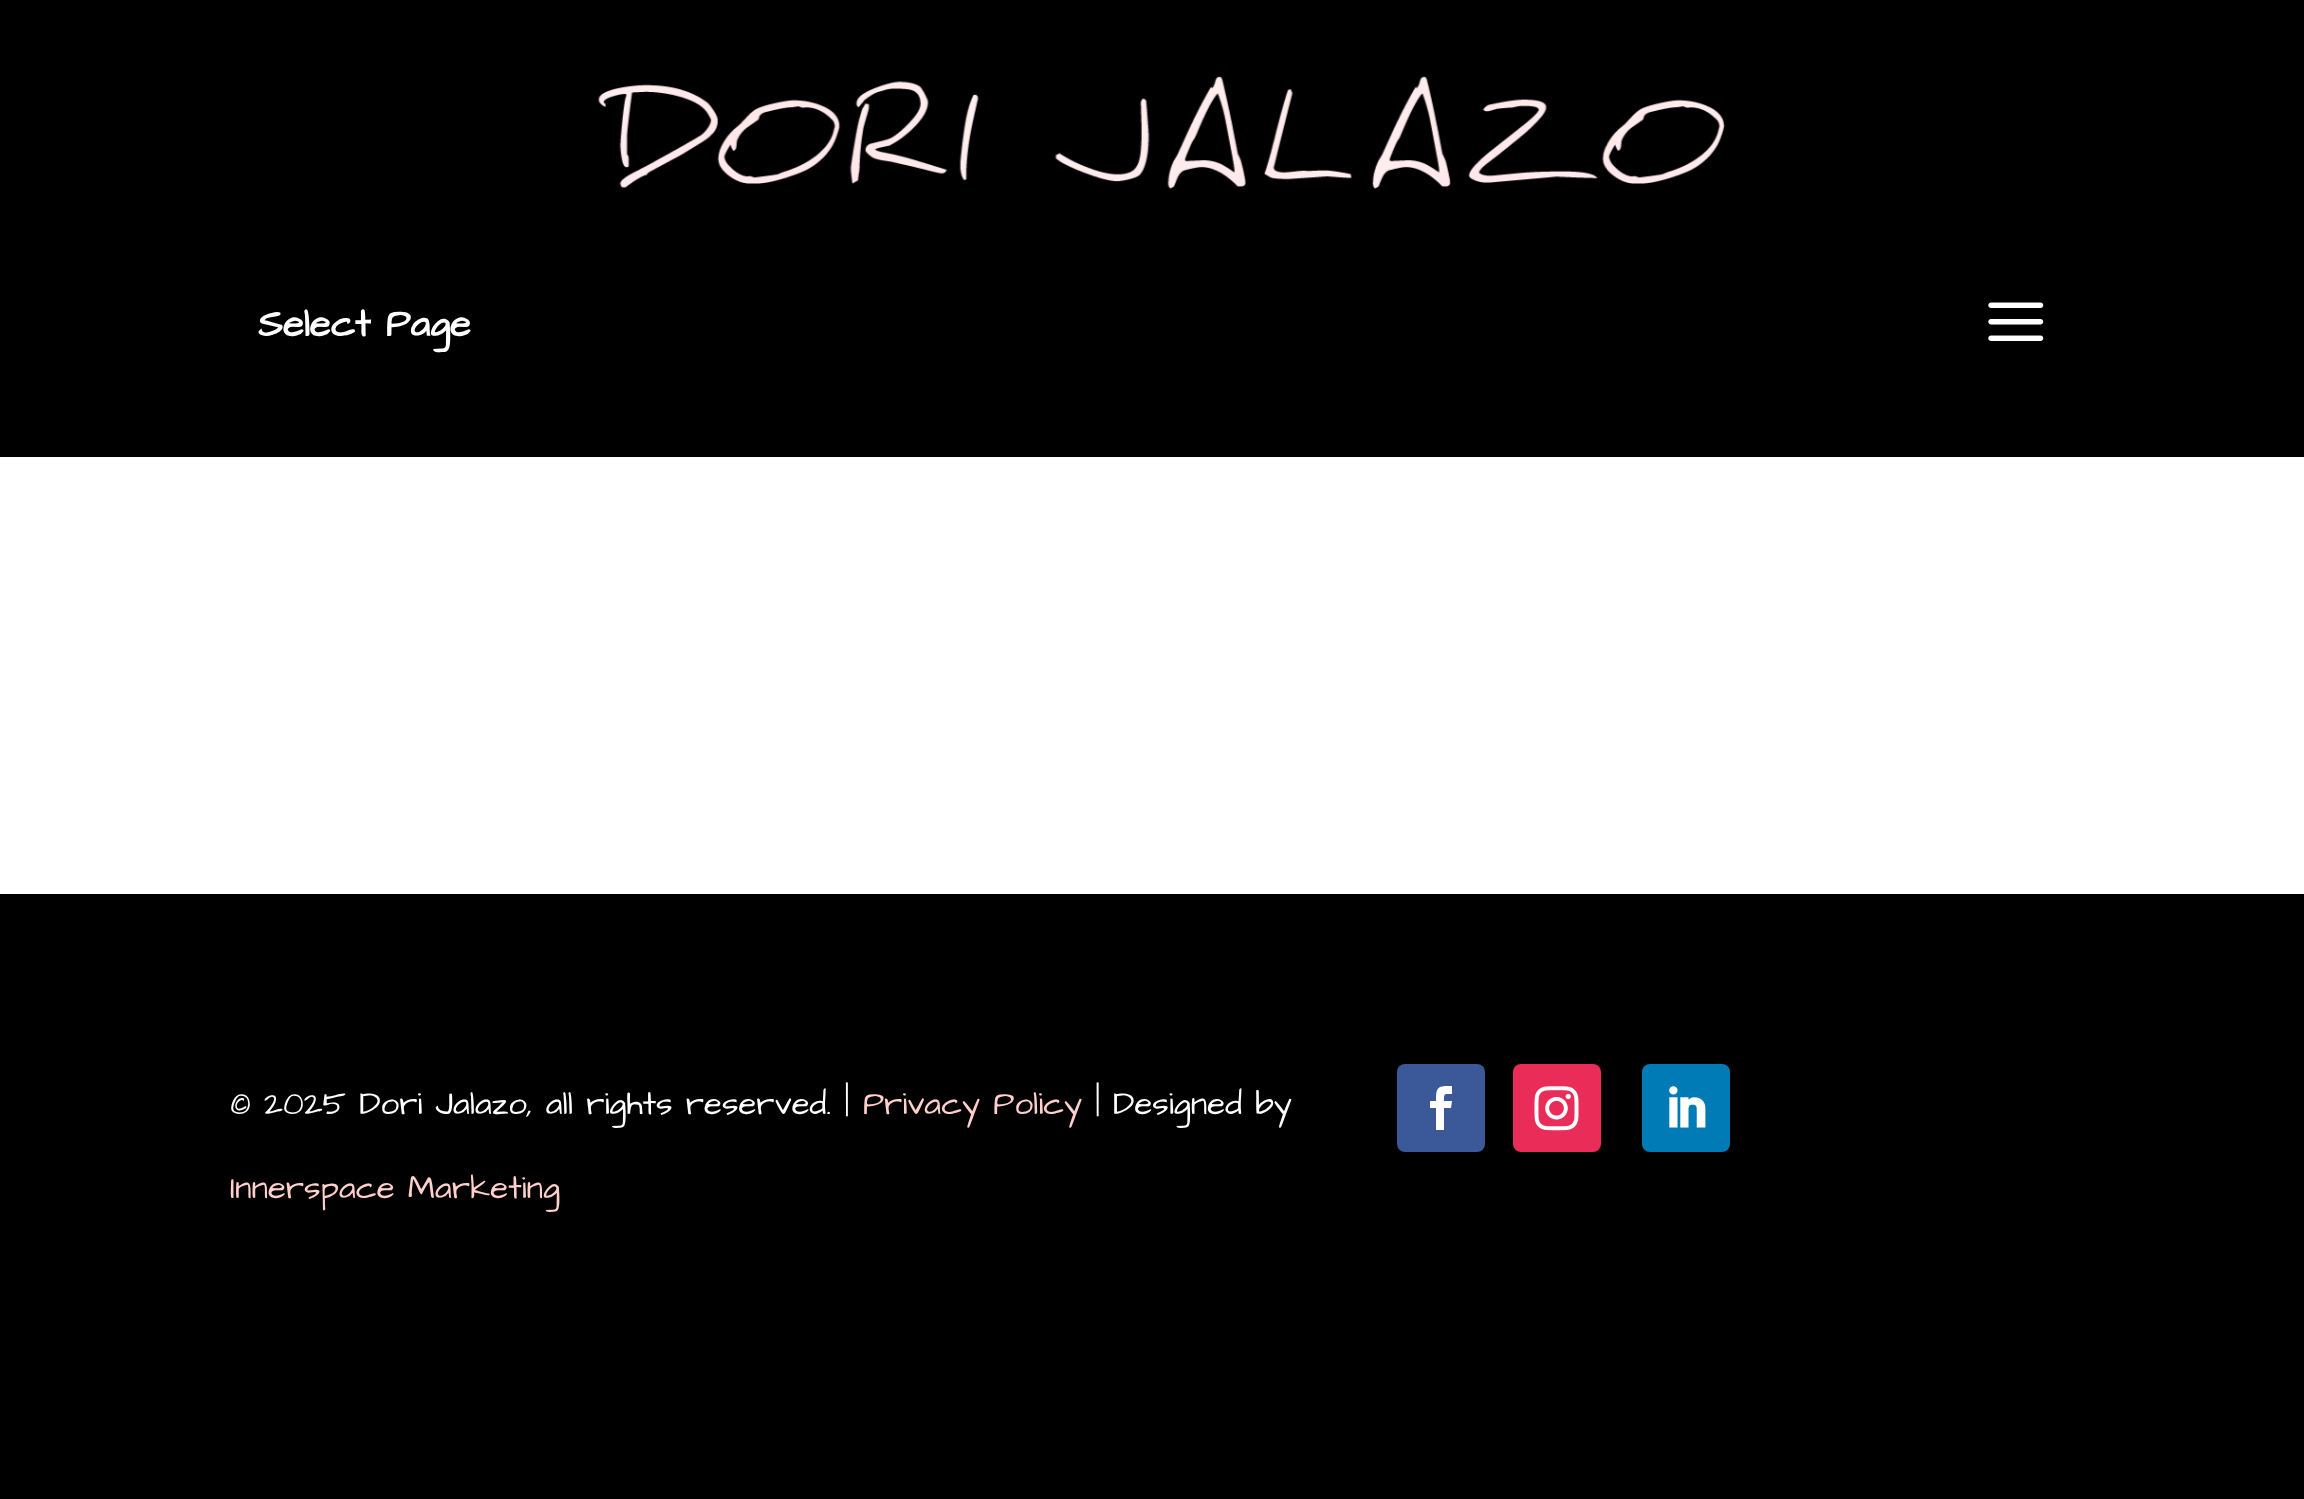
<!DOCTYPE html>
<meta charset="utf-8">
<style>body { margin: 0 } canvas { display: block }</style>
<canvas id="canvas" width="2304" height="1499"></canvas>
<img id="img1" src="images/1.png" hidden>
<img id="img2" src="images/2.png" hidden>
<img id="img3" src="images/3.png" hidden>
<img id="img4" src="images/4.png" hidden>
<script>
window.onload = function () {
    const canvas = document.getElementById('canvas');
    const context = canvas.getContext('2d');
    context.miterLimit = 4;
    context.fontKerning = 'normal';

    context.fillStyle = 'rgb(0, 0, 0)';
    context.fillRect(0, 0, 2304, 1499);
    context.drawImage(document.getElementById('img1'), 597, 76, 1128, 113);
    context.drawImage(document.getElementById('img2'), 1988, 302, 56, 39);
    context.fillStyle = 'rgb(255, 255, 255)';
    context.fillRect(0, 457, 2304, 437);
    context.fillStyle = 'rgb(59, 89, 152)';
    context.beginPath();
    context.roundRect(1397, 1064, 88, 88, 8);
    context.fill();
    context.fillStyle = 'rgb(255, 255, 255)';
    context.beginPath();
    context.moveTo(1436, 1130);
    context.lineTo(1444, 1130);
    context.lineTo(1444, 1108);
    context.lineTo(1451, 1108);
    context.lineTo(1452, 1101);
    context.lineTo(1444, 1101);
    context.bezierCurveTo(1444, 1093, 1444, 1094, 1452, 1094);
    context.lineTo(1452, 1086);
    context.bezierCurveTo(1438, 1086, 1436, 1086, 1436, 1101);
    context.lineTo(1430, 1101);
    context.lineTo(1430, 1108);
    context.lineTo(1436, 1108);
    context.closePath();
    context.fill();
    context.fillStyle = 'rgb(234, 44, 89)';
    context.beginPath();
    context.roundRect(1513, 1064, 88, 88, 8);
    context.fill();
    context.drawImage(document.getElementById('img3'), 1534, 1086, 45, 45);
    context.fillStyle = 'rgb(0, 123, 182)';
    context.beginPath();
    context.roundRect(1642, 1064, 88, 88, 8);
    context.fill();
    context.drawImage(document.getElementById('img4'), 1669, 1086, 37, 42);
    context.font = 'bold 38.5px Architects Daughter';
    context.fillStyle = 'rgb(255, 255, 255)';
    context.fillText('Select Page', 258, 336);
    context.font = '33px Architects Daughter';
    context.fillText('© 2025 Dori Jalazo, all rights reserved. |', 230, 1114);
    context.fillStyle = 'rgb(255, 208, 204)';
    context.fillText('Privacy Policy', 863, 1114);
    context.fillStyle = 'rgb(255, 255, 255)';
    context.fillText('| Designed by', 1095, 1114);
    context.fillStyle = 'rgb(255, 208, 204)';
    context.fillText('Innerspace Marketing', 230, 1198);
};
</script>
